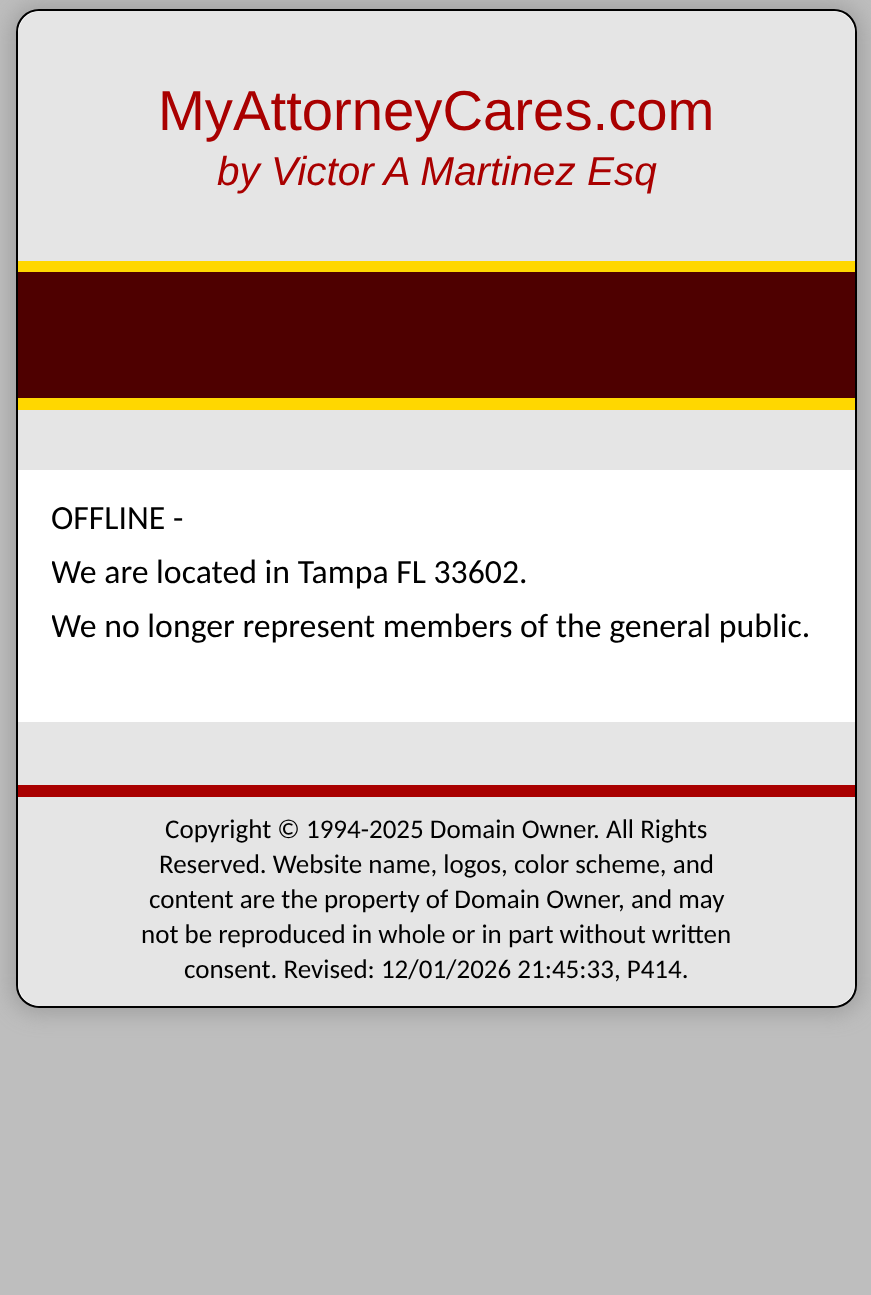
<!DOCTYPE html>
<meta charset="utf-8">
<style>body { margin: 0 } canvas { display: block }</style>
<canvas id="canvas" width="871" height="1295"></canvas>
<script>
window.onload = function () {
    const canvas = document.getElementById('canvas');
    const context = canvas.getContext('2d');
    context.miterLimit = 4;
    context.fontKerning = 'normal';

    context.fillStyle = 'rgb(190, 190, 190)';
    context.fillRect(0, 0, 871, 1295);
    context.fillStyle = 'rgba(128, 128, 128, 0.5)';
    context.filter = 'blur(11px)';
    context.beginPath();
    context.roundRect(11, 5, 851, 1008, 27);
    context.fill();
    context.filter = 'none';
    context.fillStyle = 'rgb(255, 255, 255)';
    context.beginPath();
    context.roundRect(17, 10, 839, 997, 22);
    context.fill();
    context.strokeStyle = 'rgb(0, 0, 0)';
    context.lineWidth = 2;
    context.stroke();
    context.fillStyle = 'rgb(229, 229, 229)';
    context.beginPath();
    context.roundRect(18, 11, 837, 250, [23, 23, 0, 0]);
    context.fill();
    context.fillStyle = 'rgb(78, 0, 0)';
    context.fillRect(18, 272, 837, 126);
    context.fillStyle = 'rgb(255, 215, 0)';
    context.fillRect(18, 261, 837, 11);
    context.fillRect(18, 398, 837, 12);
    context.fillStyle = 'rgb(229, 229, 229)';
    context.fillRect(18, 410, 837, 60);
    context.fillRect(18, 722, 837, 63);
    context.beginPath();
    context.roundRect(18, 797, 837, 209, [0, 0, 23, 23]);
    context.fill();
    context.fillStyle = 'rgb(169, 0, 0)';
    context.fillRect(18, 785, 837, 12);
    context.font = '56.25px Liberation Sans';
    context.fillText('MyAttorneyCares.com', 158, 130);
    context.font = 'italic 40.5px Liberation Sans';
    context.fillText('by Victor A Martinez Esq', 217, 185);
    context.font = '33.75px Carlito';
    context.fillStyle = 'rgb(0, 0, 0)';
    context.fillText('OFFLINE -', 51, 529);
    context.save();
    context.beginPath();
    context.rect(52, 488, 769, 219);
    context.clip();
    context.fillText('We are located in Tampa FL 33602.', 51, 583);
    context.fillText('We no longer represent members of the general public.', 51, 637);
    context.restore();
    context.font = '27px Carlito';
    context.fillText('Copyright © 1994-2025 Domain Owner. All Rights', 165, 838);
    context.fillText('Reserved. Website name, logos, color scheme, and', 159, 873);
    context.fillText('content are the property of Domain Owner, and may', 149, 908);
    context.fillText('not be reproduced in whole or in part without written', 141, 943);
    context.fillText('consent. Revised: 12/01/2026 21:45:33, P414.', 184, 978);
};
</script>
